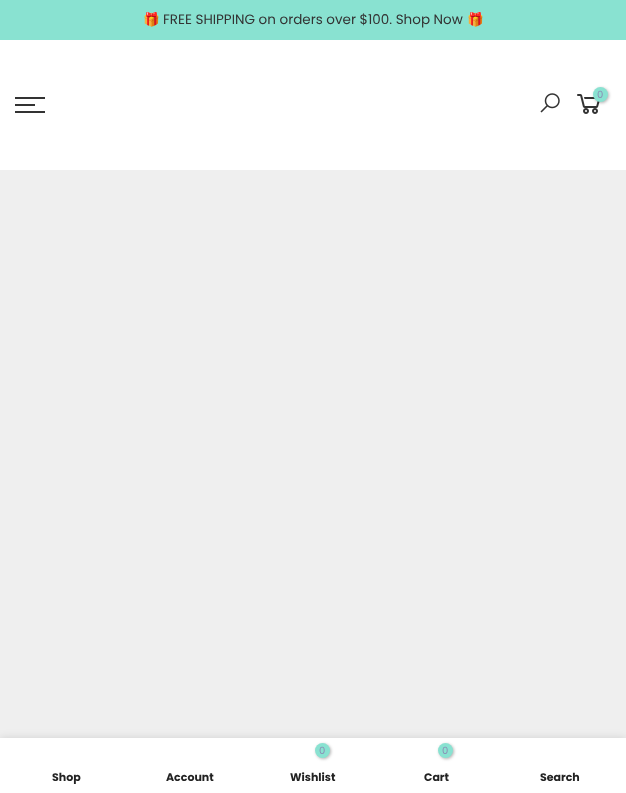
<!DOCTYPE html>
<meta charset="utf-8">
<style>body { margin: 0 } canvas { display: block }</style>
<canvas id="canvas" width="626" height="793"></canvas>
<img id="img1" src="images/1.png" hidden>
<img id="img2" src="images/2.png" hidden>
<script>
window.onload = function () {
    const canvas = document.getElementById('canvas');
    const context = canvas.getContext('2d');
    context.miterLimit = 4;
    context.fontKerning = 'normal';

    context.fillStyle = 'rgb(137, 226, 209)';
    context.fillRect(0, 0, 626, 793);
    context.fillStyle = 'rgb(255, 255, 255)';
    context.fillRect(0, 40, 626, 130);
    context.drawImage(document.getElementById('img1'), 540, 93, 20, 20);
    context.drawImage(document.getElementById('img2'), 577, 94, 23, 20);
    context.fillStyle = 'rgba(0, 0, 0, 0.3)';
    context.filter = 'blur(1.5px)';
    context.beginPath();
    context.roundRect(594, 88, 15, 15, 7.5);
    context.fill();
    context.filter = 'none';
    context.fillStyle = 'rgb(137, 226, 209)';
    context.beginPath();
    context.arc(600.5, 94.5, 7.5, 0, 2 * Math.PI);
    context.fill();
    context.fillStyle = 'rgb(51, 51, 51)';
    context.fillRect(15, 97, 30, 2);
    context.fillRect(15, 104, 20, 2);
    context.fillRect(15, 111, 30, 2);
    context.fillStyle = 'rgb(239, 239, 239)';
    context.fillRect(0, 170, 626, 568);
    context.fillStyle = 'rgba(0, 0, 0, 0.12)';
    context.filter = 'blur(4.5px)';
    context.beginPath();
    context.rect(0, 738, 626, 55);
    context.fill();
    context.filter = 'none';
    context.fillStyle = 'rgb(255, 255, 255)';
    context.fillRect(0, 738, 626, 55);
    context.fillStyle = 'rgba(0, 0, 0, 0.3)';
    context.filter = 'blur(1.5px)';
    context.beginPath();
    context.roundRect(316, 744, 15, 15, 7.5);
    context.fill();
    context.filter = 'none';
    context.fillStyle = 'rgb(137, 226, 209)';
    context.beginPath();
    context.arc(322.5, 750.5, 7.5, 0, 2 * Math.PI);
    context.fill();
    context.fillStyle = 'rgba(0, 0, 0, 0.3)';
    context.filter = 'blur(1.5px)';
    context.beginPath();
    context.roundRect(439, 744, 15, 15, 7.5);
    context.fill();
    context.filter = 'none';
    context.fillStyle = 'rgb(137, 226, 209)';
    context.beginPath();
    context.arc(445.5, 750.5, 7.5, 0, 2 * Math.PI);
    context.fill();
    context.font = '13.5px Noto Color Emoji';
    context.fillStyle = 'rgb(51, 51, 51)';
    context.fillText('🎁', 143, 24);
    context.font = '13.5px Poppins';
    context.fillText('FREE SHIPPING on orders over $100. Shop Now', 163, 24);
    context.font = '13.5px Noto Color Emoji';
    context.fillText('🎁', 467, 24);
    context.font = '10px Poppins';
    context.fillStyle = 'rgb(138, 139, 180)';
    context.fillText('0', 597, 98);
    context.font = 'bold 11px Poppins';
    context.fillStyle = 'rgb(34, 34, 34)';
    context.fillText('Shop', 52, 781);
    context.fillText('Account', 166, 781);
    context.font = '10px Poppins';
    context.fillStyle = 'rgb(138, 139, 180)';
    context.fillText('0', 319, 754);
    context.font = 'bold 11px Poppins';
    context.fillStyle = 'rgb(34, 34, 34)';
    context.fillText('Wishlist', 290, 781);
    context.font = '10px Poppins';
    context.fillStyle = 'rgb(138, 139, 180)';
    context.fillText('0', 442, 754);
    context.font = 'bold 11px Poppins';
    context.fillStyle = 'rgb(34, 34, 34)';
    context.fillText('Cart', 424, 781);
    context.fillText('Search', 540, 781);
};
</script>
